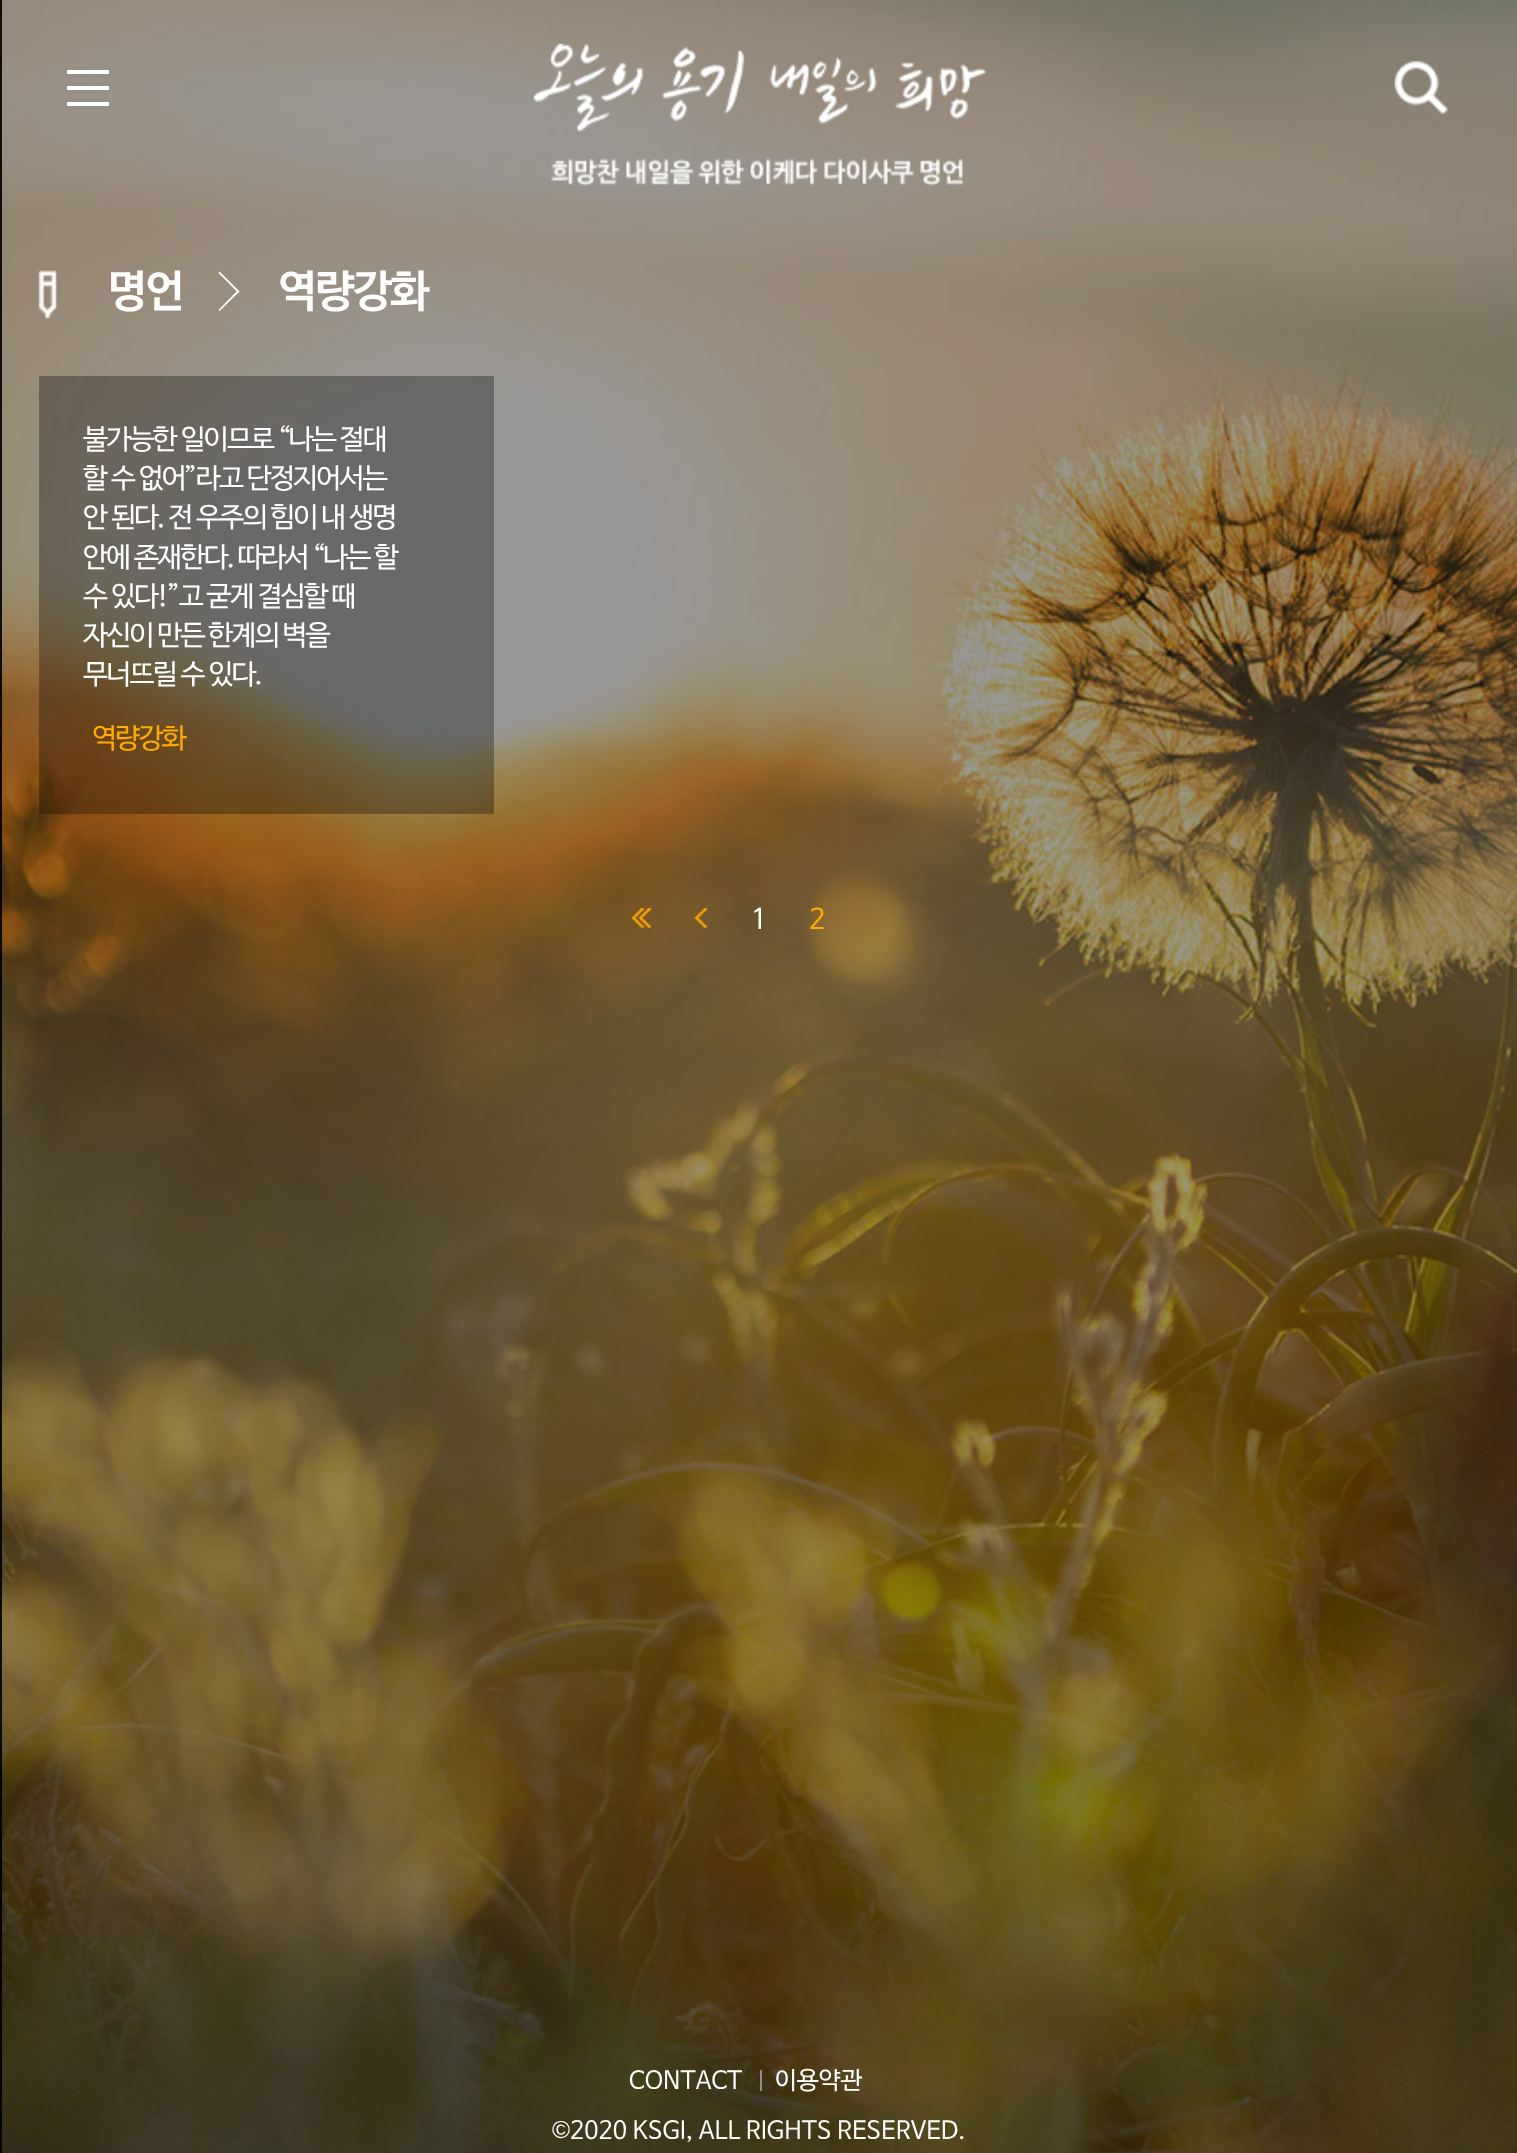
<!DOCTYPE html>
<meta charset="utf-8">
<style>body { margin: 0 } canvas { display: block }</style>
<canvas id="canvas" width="1517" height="2153"></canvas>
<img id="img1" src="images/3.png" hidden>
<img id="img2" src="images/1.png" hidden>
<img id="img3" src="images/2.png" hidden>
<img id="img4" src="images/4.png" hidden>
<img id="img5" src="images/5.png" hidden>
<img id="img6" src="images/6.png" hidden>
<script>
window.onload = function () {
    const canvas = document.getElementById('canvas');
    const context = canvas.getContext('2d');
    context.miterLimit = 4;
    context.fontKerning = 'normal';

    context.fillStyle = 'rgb(255, 255, 255)';
    context.fillRect(0, 0, 1517, 2153);
    context.drawImage(document.getElementById('img1'), 0, 0, 1517, 2153);
    context.fillStyle = 'rgba(0, 0, 0, 0.9)';
    context.fillRect(0, 0, 2, 2153);
    context.fillStyle = 'rgb(255, 255, 255)';
    context.fillRect(67, 70, 42, 4);
    context.fillRect(67, 86, 42, 4);
    context.fillRect(67, 102, 42, 4);
    context.drawImage(document.getElementById('img2'), 533, 43, 453, 143);
    context.drawImage(document.getElementById('img3'), 1394, 61, 54, 54);
    context.drawImage(document.getElementById('img4'), 38, 270, 20, 50);
    context.beginPath();
    context.moveTo(219.5, 271.5);
    context.lineTo(239.5, 291.5);
    context.lineTo(238, 292.5);
    context.lineTo(218.5, 273);
    context.closePath();
    context.fill();
    context.beginPath();
    context.moveTo(238, 290);
    context.lineTo(239.5, 291.5);
    context.lineTo(219.5, 311);
    context.lineTo(218.5, 310);
    context.closePath();
    context.fill();
    context.fillStyle = 'rgba(0, 0, 0, 0.3)';
    context.fillRect(39, 376, 455, 438);
    context.drawImage(document.getElementById('img5'), 631, 908, 20, 20);
    context.drawImage(document.getElementById('img6'), 694, 908, 13, 20);
    context.fillStyle = 'rgb(148, 137, 133)';
    context.fillRect(760, 2070, 2, 21);
    context.letterSpacing = '-1.75px';
    context.font = '600 44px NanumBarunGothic';
    context.fillStyle = 'rgb(255, 255, 255)';
    context.fillText('명언', 108, 305);
    context.fillText('역량강화', 278, 305);
    context.font = '28px NanumBarunGothic';
    context.fillText('불가능한 일이므로 “나는 절대', 83, 448);
    context.fillText('할 수 없어”라고 단정지어서는', 83, 487);
    context.fillText('안 된다. 전 우주의 힘이 내 생명', 83, 526);
    context.fillText('안에 존재한다. 따라서 “나는 할', 83, 566);
    context.fillText('수 있다!”고 굳게 결심할 때', 83, 605);
    context.fillText('자신이 만든 한계의 벽을', 83, 644);
    context.fillText('무너뜨릴 수 있다.', 83, 683);
    context.fillStyle = 'rgb(255, 172, 0)';
    context.fillText('역량강화', 92, 747);
    context.fillStyle = 'rgb(255, 255, 255)';
    context.fillText('1', 751, 928);
    context.fillStyle = 'rgb(255, 172, 0)';
    context.fillText('2', 809, 928);
    context.letterSpacing = '0px';
    context.font = '24.5px NanumBarunGothic';
    context.fillStyle = 'rgb(255, 255, 255)';
    context.fillText('CONTACT', 629, 2088);
    context.fillText('이용약관', 775, 2088);
    context.font = '24.5px Liberation Sans';
    context.fillText('©', 552, 2138);
    context.font = '24.5px NanumBarunGothic';
    context.fillText('2020 KSGI, ALL RIGHTS RESERVED.', 570, 2138);
};
</script>
